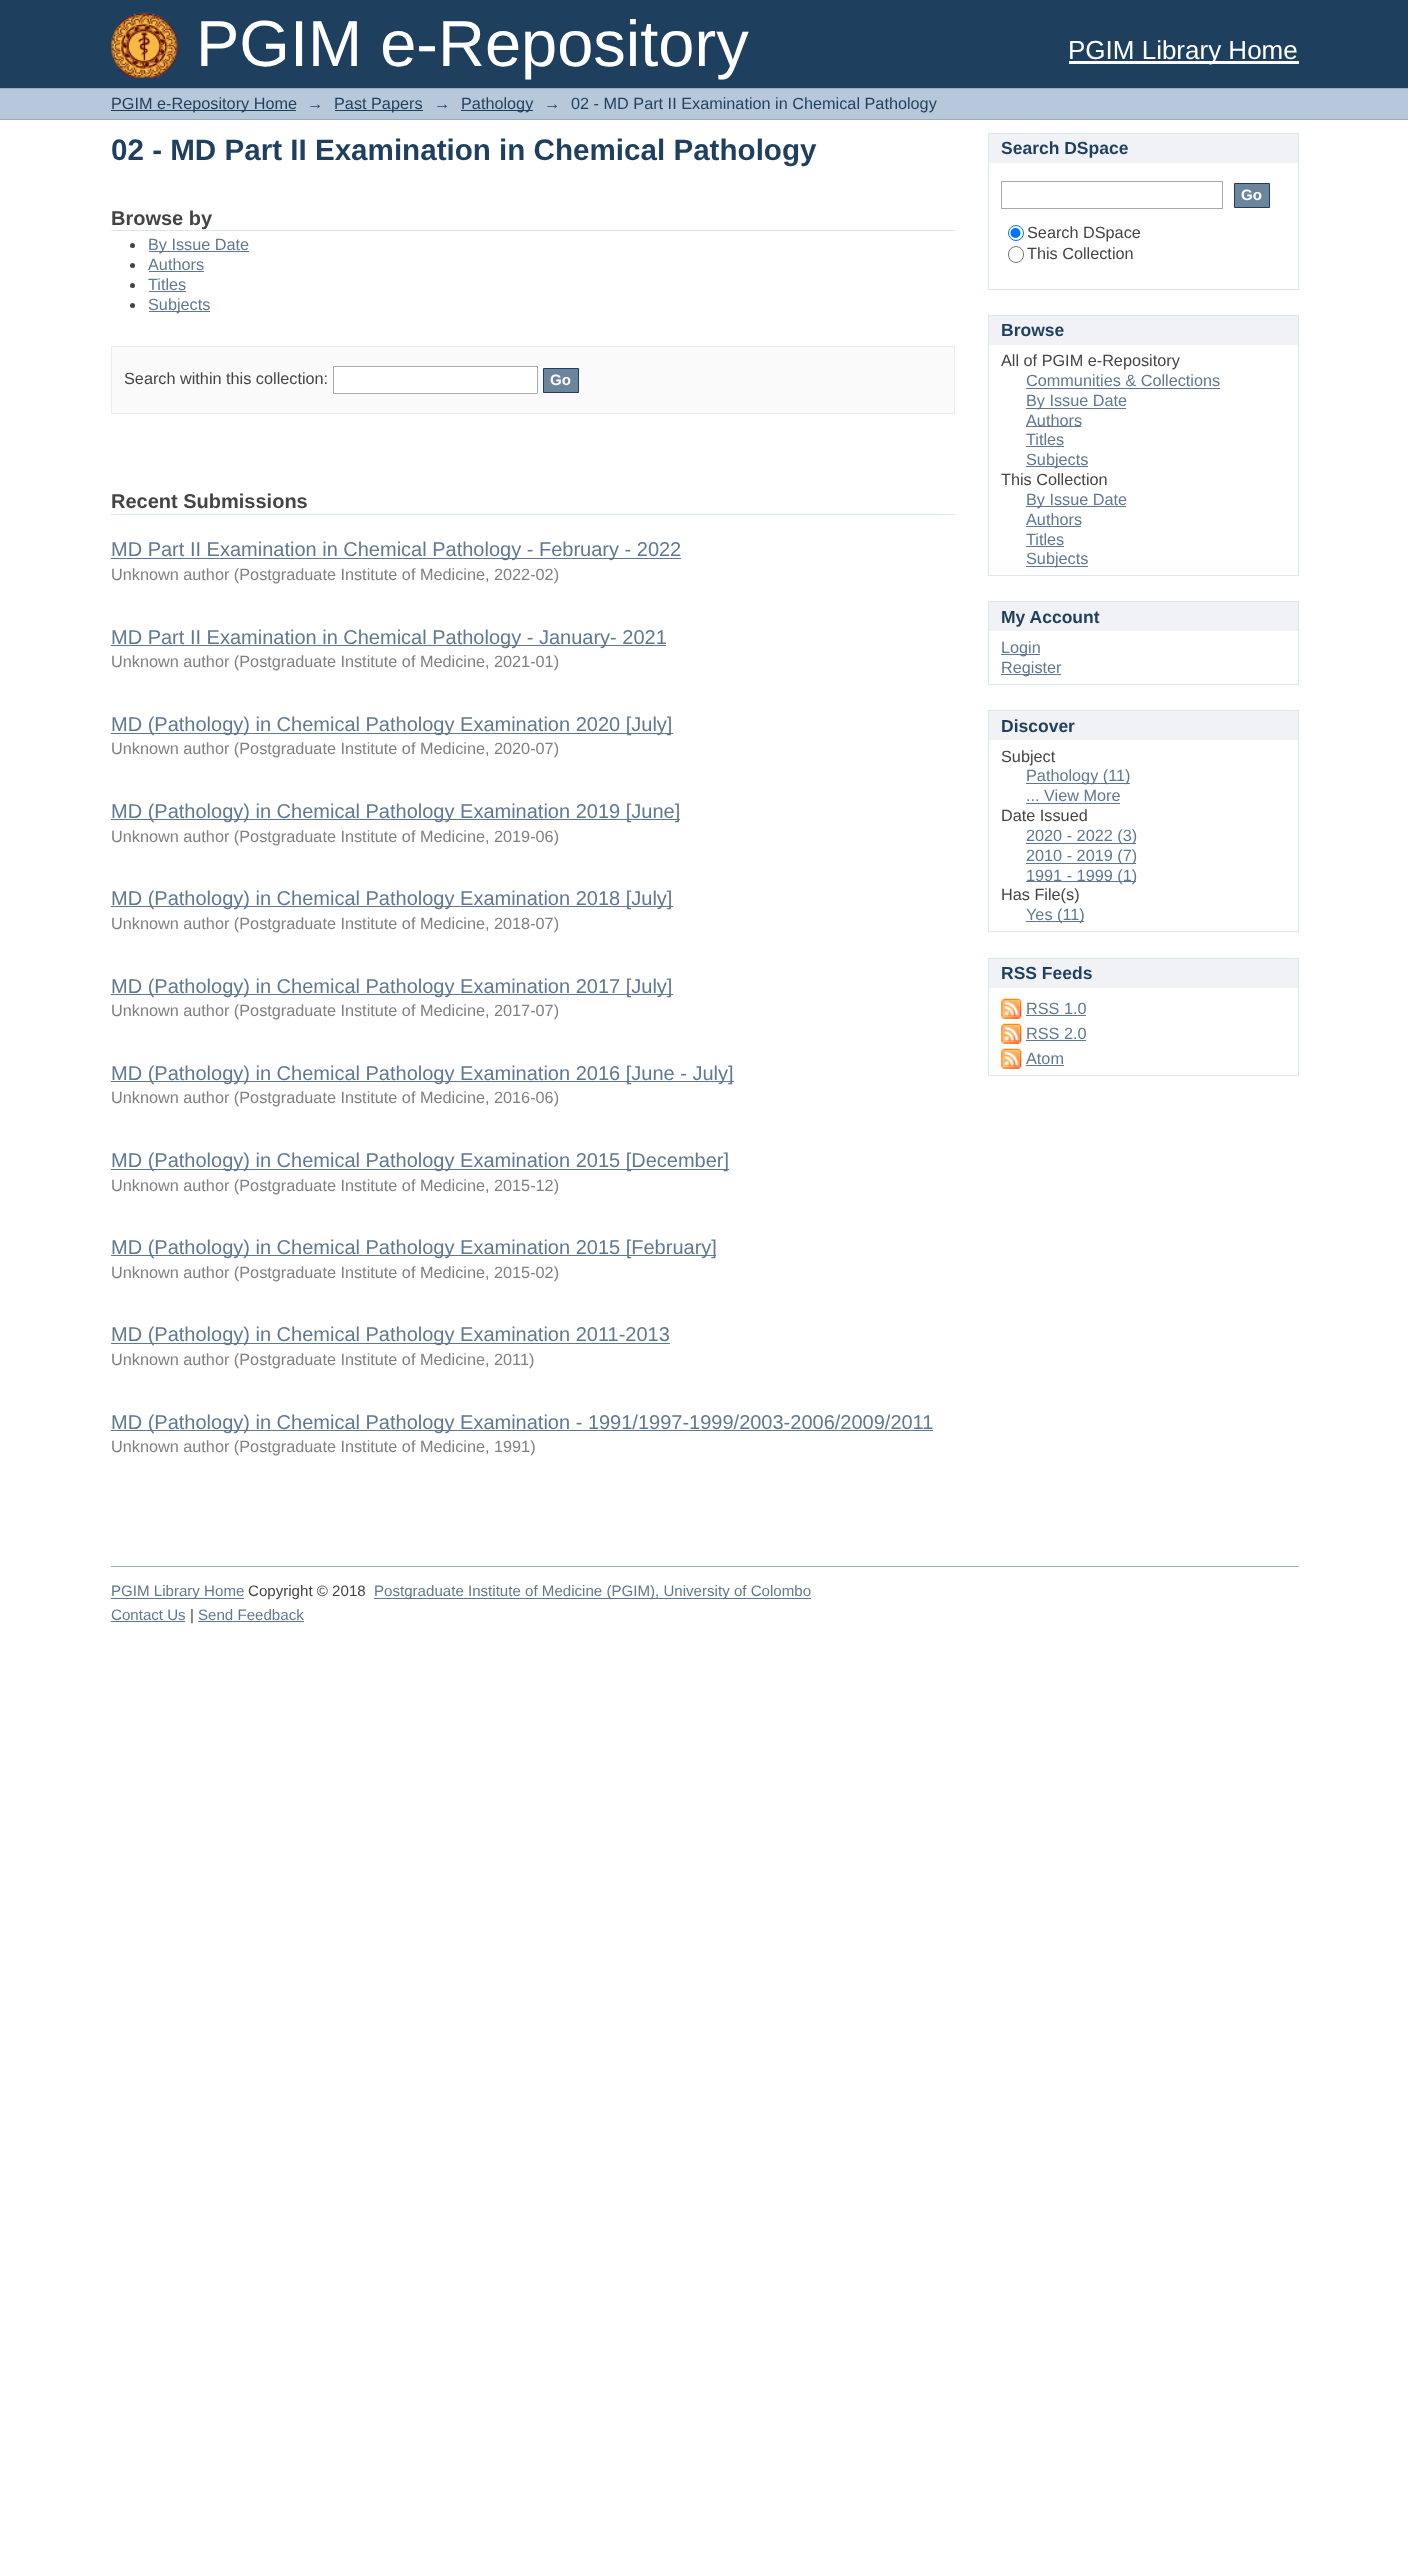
<!DOCTYPE html>
<meta charset="utf-8">
<style>body { margin: 0 } canvas { display: block }</style>
<canvas id="canvas" width="1408" height="2575"></canvas>
<img id="img1" src="images/1.png" hidden>
<img id="img2" src="images/2.png" hidden>
<img id="img3" src="images/3.png" hidden>
<script>
window.onload = function () {
    const canvas = document.getElementById('canvas');
    const context = canvas.getContext('2d');
    context.miterLimit = 4;
    context.fontKerning = 'normal';

    context.fillStyle = 'rgb(255, 255, 255)';
    context.fillRect(0, 0, 1408, 2575);
    context.fillStyle = 'rgb(31, 63, 94)';
    context.fillRect(0, 0, 1408, 88);
    context.drawImage(document.getElementById('img1'), 111, 12, 67, 66);
    context.fillStyle = 'rgb(255, 255, 255)';
    context.fillRect(1069, 61, 230, 3);
    context.fillStyle = 'rgb(182, 200, 217)';
    context.fillRect(0, 89, 1408, 30);
    context.fillStyle = 'rgb(156, 172, 186)';
    context.fillRect(0, 88, 1408, 1);
    context.fillRect(0, 119, 1408, 1);
    context.fillStyle = 'rgb(31, 63, 94)';
    context.fillRect(111, 110, 185, 1);
    context.fillRect(335, 110, 88, 1);
    context.fillRect(461, 110, 72, 1);
    context.fillStyle = 'rgb(216, 232, 235)';
    context.fillRect(111, 230, 844, 1);
    context.fillStyle = 'rgb(68, 68, 68)';
    context.beginPath();
    context.arc(132.5, 245.5, 2.5, 0, 2 * Math.PI);
    context.fill();
    context.fillStyle = 'rgb(96, 120, 144)';
    context.fillRect(149, 251, 100, 1);
    context.fillStyle = 'rgb(68, 68, 68)';
    context.beginPath();
    context.arc(132.5, 265.5, 2.5, 0, 2 * Math.PI);
    context.fill();
    context.fillStyle = 'rgb(96, 120, 144)';
    context.fillRect(149, 271, 55, 1);
    context.fillStyle = 'rgb(68, 68, 68)';
    context.beginPath();
    context.arc(132.5, 285.5, 2.5, 0, 2 * Math.PI);
    context.fill();
    context.fillStyle = 'rgb(96, 120, 144)';
    context.fillRect(149, 291, 37, 1);
    context.fillStyle = 'rgb(68, 68, 68)';
    context.beginPath();
    context.arc(132.5, 305.5, 2.5, 0, 2 * Math.PI);
    context.fill();
    context.fillStyle = 'rgb(96, 120, 144)';
    context.fillRect(149, 311, 61, 1);
    context.fillStyle = 'rgb(250, 250, 250)';
    context.beginPath();
    context.rect(111.5, 346.5, 843, 67);
    context.fill();
    context.strokeStyle = 'rgb(235, 235, 235)';
    context.stroke();
    context.fillStyle = 'rgb(255, 255, 255)';
    context.beginPath();
    context.rect(333.5, 366.5, 204, 27);
    context.fill();
    context.strokeStyle = 'rgb(170, 170, 170)';
    context.stroke();
    context.fillStyle = 'rgb(109, 133, 156)';
    context.beginPath();
    context.rect(543.5, 368.5, 35, 24);
    context.fill();
    context.strokeStyle = 'rgb(31, 63, 94)';
    context.stroke();
    context.fillStyle = 'rgb(216, 232, 235)';
    context.fillRect(111, 514, 844, 1);
    context.fillStyle = 'rgb(96, 120, 144)';
    context.fillRect(111, 558, 570, 1);
    context.fillRect(111, 645, 555, 1);
    context.fillRect(111, 733, 562, 1);
    context.fillRect(111, 819, 569, 1);
    context.fillRect(111, 906, 562, 1);
    context.fillRect(111, 994, 562, 1);
    context.fillRect(111, 1081, 623, 1);
    context.fillRect(111, 1169, 618, 1);
    context.fillRect(111, 1255, 605, 1);
    context.fillRect(111, 1343, 559, 1);
    context.fillRect(111, 1430, 822, 1);
    context.fillStyle = 'rgb(240, 242, 245)';
    context.fillRect(989, 134, 309, 29);
    context.fillStyle = 'rgb(216, 232, 235)';
    context.fillRect(988, 133, 311, 1);
    context.fillRect(1298, 133, 1, 157);
    context.fillRect(988, 133, 1, 30);
    context.fillRect(988, 289, 311, 1);
    context.fillRect(988, 163, 1, 127);
    context.strokeStyle = 'rgb(170, 170, 170)';
    context.strokeRect(1001.5, 181.5, 221, 27);
    context.fillStyle = 'rgb(109, 133, 156)';
    context.beginPath();
    context.rect(1234.5, 183.5, 35, 24);
    context.fill();
    context.strokeStyle = 'rgb(31, 63, 94)';
    context.stroke();
    context.beginPath();
    context.arc(1016, 233, 7.5, 0, 2 * Math.PI);
    context.strokeStyle = 'rgb(0, 117, 255)';
    context.stroke();
    context.fillStyle = 'rgb(0, 117, 255)';
    context.beginPath();
    context.arc(1015.5, 233, 5, 0, 2 * Math.PI);
    context.fill();
    context.beginPath();
    context.roundRect(1008.5, 246.5, 15, 16, 7.5);
    context.strokeStyle = 'rgb(118, 118, 118)';
    context.stroke();
    context.fillStyle = 'rgb(240, 242, 245)';
    context.fillRect(989, 316, 309, 29);
    context.fillStyle = 'rgb(216, 232, 235)';
    context.fillRect(988, 315, 311, 1);
    context.fillRect(1298, 315, 1, 261);
    context.fillRect(988, 315, 1, 30);
    context.fillRect(988, 575, 311, 1);
    context.fillRect(988, 345, 1, 231);
    context.fillStyle = 'rgb(96, 120, 144)';
    context.fillRect(1026, 388, 194, 1);
    context.fillRect(1026, 408, 100, 1);
    context.fillRect(1026, 426, 55, 1);
    context.fillRect(1026, 446, 38, 1);
    context.fillRect(1026, 466, 62, 1);
    context.fillRect(1026, 506, 100, 1);
    context.fillRect(1026, 526, 55, 1);
    context.fillRect(1026, 546, 38, 1);
    context.fillRect(1026, 566, 62, 1);
    context.fillStyle = 'rgb(240, 242, 245)';
    context.fillRect(989, 602, 309, 29);
    context.fillStyle = 'rgb(216, 232, 235)';
    context.fillRect(988, 601, 311, 1);
    context.fillRect(1298, 601, 1, 84);
    context.fillRect(988, 601, 1, 30);
    context.fillRect(988, 684, 311, 1);
    context.fillRect(988, 631, 1, 54);
    context.fillStyle = 'rgb(96, 120, 144)';
    context.fillRect(1001, 654, 39, 1);
    context.fillRect(1001, 674, 60, 1);
    context.fillStyle = 'rgb(240, 242, 245)';
    context.fillRect(989, 711, 309, 29);
    context.fillStyle = 'rgb(216, 232, 235)';
    context.fillRect(988, 710, 311, 1);
    context.fillRect(1298, 710, 1, 223);
    context.fillRect(988, 710, 1, 30);
    context.fillRect(988, 931, 311, 1);
    context.fillRect(988, 740, 1, 193);
    context.fillStyle = 'rgb(96, 120, 144)';
    context.fillRect(1026, 783, 104, 1);
    context.fillRect(1026, 803, 94, 1);
    context.fillRect(1026, 843, 110, 1);
    context.fillRect(1026, 863, 110, 1);
    context.fillRect(1026, 881, 110, 1);
    context.fillRect(1026, 921, 58, 1);
    context.fillStyle = 'rgb(240, 242, 245)';
    context.fillRect(989, 959, 309, 29);
    context.fillStyle = 'rgb(216, 232, 235)';
    context.fillRect(988, 958, 311, 1);
    context.fillRect(1298, 958, 1, 118);
    context.fillRect(988, 958, 1, 30);
    context.fillRect(988, 1075, 311, 1);
    context.fillRect(988, 988, 1, 88);
    context.drawImage(document.getElementById('img2'), 1001, 998, 21, 21);
    context.fillStyle = 'rgb(96, 120, 144)';
    context.fillRect(1026, 1015, 60, 1);
    context.drawImage(document.getElementById('img3'), 1001, 1023, 21, 21);
    context.fillRect(1026, 1040, 60, 1);
    context.drawImage(document.getElementById('img2'), 1001, 1048, 21, 21);
    context.fillRect(1026, 1065, 38, 1);
    context.fillStyle = 'rgb(156, 172, 186)';
    context.fillRect(111, 1566, 1188, 1);
    context.fillStyle = 'rgb(96, 120, 144)';
    context.fillRect(111, 1598, 133, 1);
    context.fillRect(374, 1598, 437, 1);
    context.fillRect(111, 1621, 74, 1);
    context.fillRect(198, 1621, 106, 1);
    context.font = '65px Liberation Sans';
    context.fillStyle = 'rgb(255, 255, 255)';
    context.fillText('PGIM e-Repository', 196, 66);
    context.font = '26px Liberation Sans';
    context.fillText('PGIM Library Home', 1068, 59);
    context.font = '16.25px Liberation Sans';
    context.fillStyle = 'rgb(31, 63, 94)';
    context.fillText('PGIM e-Repository Home', 111, 109);
    context.fillText('→', 307, 109);
    context.fillText('Past Papers', 334, 109);
    context.fillText('→', 434, 109);
    context.fillText('Pathology', 461, 109);
    context.fillText('→', 544, 109);
    context.fillText('02 - MD Part II Examination in Chemical Pathology', 571, 109);
    context.font = 'bold 29.6px Liberation Sans';
    context.fillText('02 - MD Part II Examination in Chemical Pathology', 111, 160);
    context.font = 'bold 20px Liberation Sans';
    context.fillStyle = 'rgb(68, 68, 68)';
    context.fillText('Browse by', 111, 225);
    context.font = '16.25px Liberation Sans';
    context.fillStyle = 'rgb(96, 120, 144)';
    context.fillText('By Issue Date', 148, 250);
    context.fillText('Authors', 148, 270);
    context.fillText('Titles', 148, 290);
    context.fillText('Subjects', 148, 310);
    context.fillStyle = 'rgb(68, 68, 68)';
    context.fillText('Search within this collection:', 124, 384);
    context.font = 'bold 15.1px Liberation Sans';
    context.fillStyle = 'rgb(255, 255, 255)';
    context.fillText('Go', 550, 385);
    context.font = 'bold 20px Liberation Sans';
    context.fillStyle = 'rgb(68, 68, 68)';
    context.fillText('Recent Submissions', 111, 508);
    context.font = '20px Liberation Sans';
    context.fillStyle = 'rgb(96, 120, 144)';
    context.fillText('MD Part II Examination in Chemical Pathology - February - 2022', 111, 556);
    context.font = '16.25px Liberation Sans';
    context.fillStyle = 'rgb(128, 128, 128)';
    context.fillText('Unknown author (Postgraduate Institute of Medicine, 2022-02)', 111, 580);
    context.font = '20px Liberation Sans';
    context.fillStyle = 'rgb(96, 120, 144)';
    context.fillText('MD Part II Examination in Chemical Pathology - January- 2021', 111, 644);
    context.font = '16.25px Liberation Sans';
    context.fillStyle = 'rgb(128, 128, 128)';
    context.fillText('Unknown author (Postgraduate Institute of Medicine, 2021-01)', 111, 667);
    context.font = '20px Liberation Sans';
    context.fillStyle = 'rgb(96, 120, 144)';
    context.fillText('MD (Pathology) in Chemical Pathology Examination 2020 [July]', 111, 731);
    context.font = '16.25px Liberation Sans';
    context.fillStyle = 'rgb(128, 128, 128)';
    context.fillText('Unknown author (Postgraduate Institute of Medicine, 2020-07)', 111, 754);
    context.font = '20px Liberation Sans';
    context.fillStyle = 'rgb(96, 120, 144)';
    context.fillText('MD (Pathology) in Chemical Pathology Examination 2019 [June]', 111, 818);
    context.font = '16.25px Liberation Sans';
    context.fillStyle = 'rgb(128, 128, 128)';
    context.fillText('Unknown author (Postgraduate Institute of Medicine, 2019-06)', 111, 842);
    context.font = '20px Liberation Sans';
    context.fillStyle = 'rgb(96, 120, 144)';
    context.fillText('MD (Pathology) in Chemical Pathology Examination 2018 [July]', 111, 905);
    context.font = '16.25px Liberation Sans';
    context.fillStyle = 'rgb(128, 128, 128)';
    context.fillText('Unknown author (Postgraduate Institute of Medicine, 2018-07)', 111, 929);
    context.font = '20px Liberation Sans';
    context.fillStyle = 'rgb(96, 120, 144)';
    context.fillText('MD (Pathology) in Chemical Pathology Examination 2017 [July]', 111, 993);
    context.font = '16.25px Liberation Sans';
    context.fillStyle = 'rgb(128, 128, 128)';
    context.fillText('Unknown author (Postgraduate Institute of Medicine, 2017-07)', 111, 1016);
    context.font = '20px Liberation Sans';
    context.fillStyle = 'rgb(96, 120, 144)';
    context.fillText('MD (Pathology) in Chemical Pathology Examination 2016 [June - July]', 111, 1080);
    context.font = '16.25px Liberation Sans';
    context.fillStyle = 'rgb(128, 128, 128)';
    context.fillText('Unknown author (Postgraduate Institute of Medicine, 2016-06)', 111, 1103);
    context.font = '20px Liberation Sans';
    context.fillStyle = 'rgb(96, 120, 144)';
    context.fillText('MD (Pathology) in Chemical Pathology Examination 2015 [December]', 111, 1167);
    context.font = '16.25px Liberation Sans';
    context.fillStyle = 'rgb(128, 128, 128)';
    context.fillText('Unknown author (Postgraduate Institute of Medicine, 2015-12)', 111, 1191);
    context.font = '20px Liberation Sans';
    context.fillStyle = 'rgb(96, 120, 144)';
    context.fillText('MD (Pathology) in Chemical Pathology Examination 2015 [February]', 111, 1254);
    context.font = '16.25px Liberation Sans';
    context.fillStyle = 'rgb(128, 128, 128)';
    context.fillText('Unknown author (Postgraduate Institute of Medicine, 2015-02)', 111, 1278);
    context.font = '20px Liberation Sans';
    context.fillStyle = 'rgb(96, 120, 144)';
    context.fillText('MD (Pathology) in Chemical Pathology Examination 2011-2013', 111, 1341);
    context.font = '16.25px Liberation Sans';
    context.fillStyle = 'rgb(128, 128, 128)';
    context.fillText('Unknown author (Postgraduate Institute of Medicine, 2011)', 111, 1365);
    context.font = '20px Liberation Sans';
    context.fillStyle = 'rgb(96, 120, 144)';
    context.fillText('MD (Pathology) in Chemical Pathology Examination - 1991/1997-1999/2003-2006/2009/2011', 111, 1429);
    context.font = '16.25px Liberation Sans';
    context.fillStyle = 'rgb(128, 128, 128)';
    context.fillText('Unknown author (Postgraduate Institute of Medicine, 1991)', 111, 1452);
    context.font = 'bold 17.5px Liberation Sans';
    context.fillStyle = 'rgb(31, 63, 94)';
    context.fillText('Search DSpace', 1001, 154);
    context.font = 'bold 15.1px Liberation Sans';
    context.fillStyle = 'rgb(255, 255, 255)';
    context.fillText('Go', 1241, 200);
    context.font = '16.25px Liberation Sans';
    context.fillStyle = 'rgb(68, 68, 68)';
    context.fillText('Search DSpace', 1027, 238);
    context.fillText('This Collection', 1027, 259);
    context.font = 'bold 17.5px Liberation Sans';
    context.fillStyle = 'rgb(31, 63, 94)';
    context.fillText('Browse', 1001, 336);
    context.font = '16.25px Liberation Sans';
    context.fillStyle = 'rgb(68, 68, 68)';
    context.fillText('All of PGIM e-Repository', 1001, 366);
    context.fillStyle = 'rgb(96, 120, 144)';
    context.fillText('Communities & Collections', 1026, 386);
    context.fillText('By Issue Date', 1026, 406);
    context.fillText('Authors', 1026, 426);
    context.fillText('Titles', 1026, 445);
    context.fillText('Subjects', 1026, 465);
    context.fillStyle = 'rgb(68, 68, 68)';
    context.fillText('This Collection', 1001, 485);
    context.fillStyle = 'rgb(96, 120, 144)';
    context.fillText('By Issue Date', 1026, 505);
    context.fillText('Authors', 1026, 525);
    context.fillText('Titles', 1026, 545);
    context.fillText('Subjects', 1026, 564);
    context.font = 'bold 17.5px Liberation Sans';
    context.fillStyle = 'rgb(31, 63, 94)';
    context.fillText('My Account', 1001, 623);
    context.font = '16.25px Liberation Sans';
    context.fillStyle = 'rgb(96, 120, 144)';
    context.fillText('Login', 1001, 653);
    context.fillText('Register', 1001, 673);
    context.font = 'bold 17.5px Liberation Sans';
    context.fillStyle = 'rgb(31, 63, 94)';
    context.fillText('Discover', 1001, 732);
    context.font = '16.25px Liberation Sans';
    context.fillStyle = 'rgb(68, 68, 68)';
    context.fillText('Subject', 1001, 762);
    context.fillStyle = 'rgb(96, 120, 144)';
    context.fillText('Pathology (11)', 1026, 781);
    context.fillText('... View More', 1026, 801);
    context.fillStyle = 'rgb(68, 68, 68)';
    context.fillText('Date Issued', 1001, 821);
    context.fillStyle = 'rgb(96, 120, 144)';
    context.fillText('2020 - 2022 (3)', 1026, 841);
    context.fillText('2010 - 2019 (7)', 1026, 861);
    context.fillText('1991 - 1999 (1)', 1026, 881);
    context.fillStyle = 'rgb(68, 68, 68)';
    context.fillText('Has File(s)', 1001, 900);
    context.fillStyle = 'rgb(96, 120, 144)';
    context.fillText('Yes (11)', 1026, 920);
    context.font = 'bold 17.5px Liberation Sans';
    context.fillStyle = 'rgb(31, 63, 94)';
    context.fillText('RSS Feeds', 1001, 979);
    context.font = '16.25px Liberation Sans';
    context.fillStyle = 'rgb(96, 120, 144)';
    context.fillText('RSS 1.0', 1026, 1014);
    context.fillText('RSS 2.0', 1026, 1039);
    context.fillText('Atom', 1026, 1064);
    context.font = '15.1px Liberation Sans';
    context.fillText('PGIM Library Home', 111, 1596);
    context.fillStyle = 'rgb(68, 68, 68)';
    context.fillText('Copyright © 2018', 248, 1596);
    context.fillStyle = 'rgb(96, 120, 144)';
    context.fillText('Postgraduate Institute of Medicine (PGIM), University of Colombo', 374, 1596);
    context.fillText('Contact Us', 111, 1620);
    context.fillStyle = 'rgb(68, 68, 68)';
    context.fillText('|', 190, 1620);
    context.fillStyle = 'rgb(96, 120, 144)';
    context.fillText('Send Feedback', 198, 1620);
};
</script>
